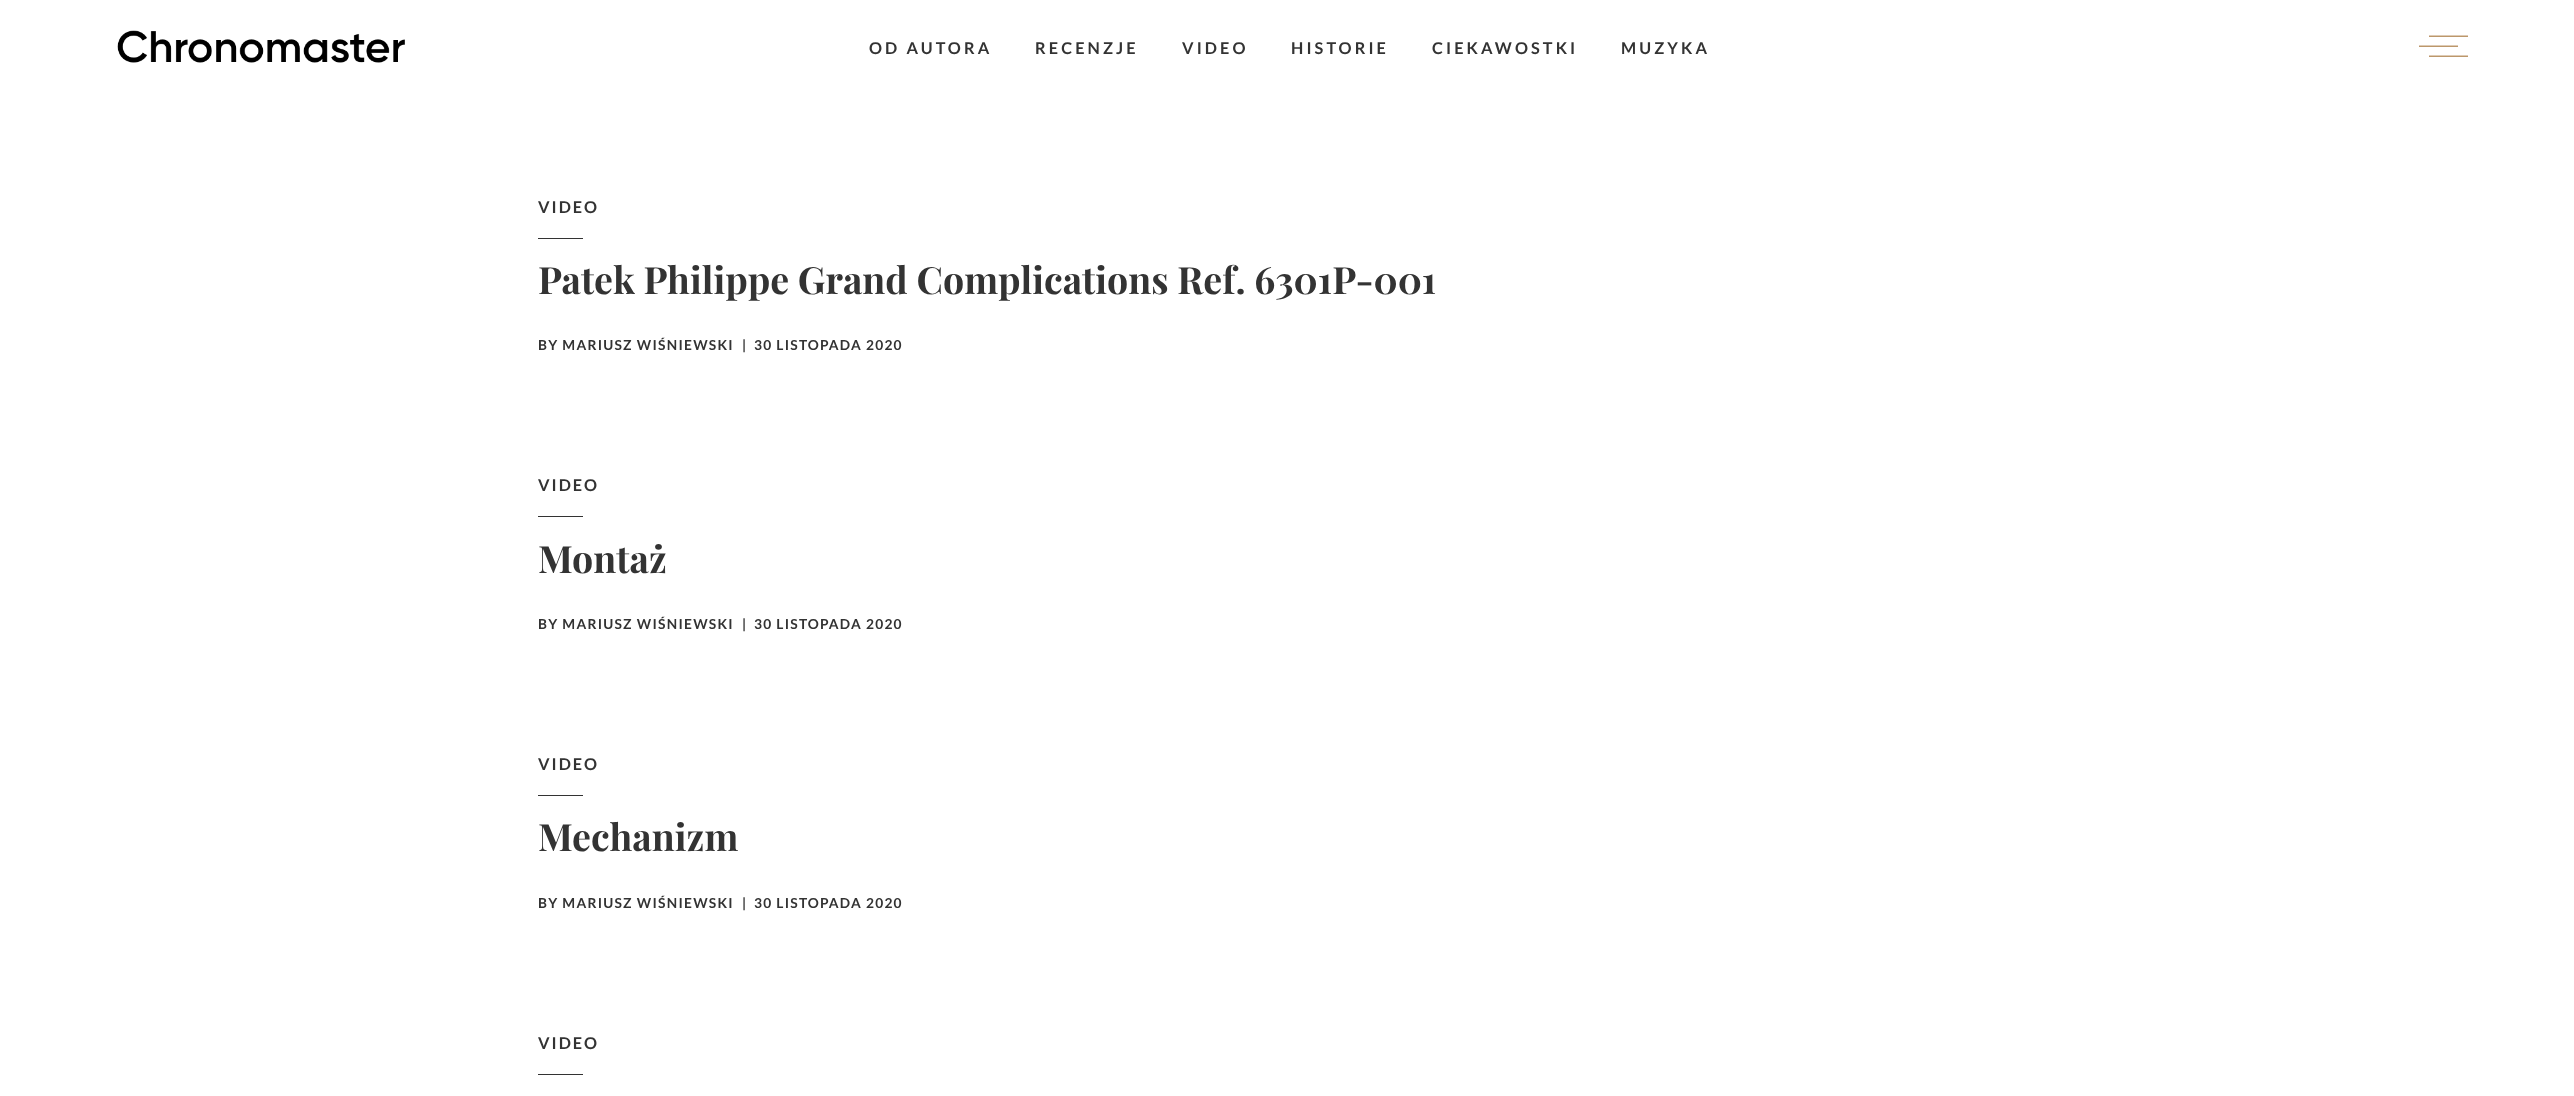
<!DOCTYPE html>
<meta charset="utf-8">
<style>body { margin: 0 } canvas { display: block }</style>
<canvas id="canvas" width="2574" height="1096"></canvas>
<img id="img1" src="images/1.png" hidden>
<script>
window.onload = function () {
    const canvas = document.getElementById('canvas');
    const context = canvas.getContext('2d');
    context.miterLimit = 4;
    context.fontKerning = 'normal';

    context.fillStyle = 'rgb(255, 255, 255)';
    context.fillRect(0, 0, 2574, 1096);
    context.drawImage(document.getElementById('img1'), 117, 30, 288, 33);
    context.fillStyle = 'rgb(188, 151, 107)';
    context.fillRect(2429, 36, 39, 1);
    context.fillStyle = 'rgb(222, 203, 181)';
    context.fillRect(2429, 35, 39, 1);
    context.fillStyle = 'rgb(188, 151, 107)';
    context.fillRect(2419, 46, 39, 1);
    context.fillStyle = 'rgb(222, 203, 181)';
    context.fillRect(2419, 45, 39, 1);
    context.fillStyle = 'rgb(188, 151, 107)';
    context.fillRect(2429, 56, 39, 1);
    context.fillStyle = 'rgb(222, 203, 181)';
    context.fillRect(2429, 55, 39, 1);
    context.fillStyle = 'rgb(51, 51, 51)';
    context.fillRect(538, 238, 45, 1);
    context.fillRect(538, 516, 45, 1);
    context.fillRect(538, 795, 45, 1);
    context.fillRect(538, 1074, 45, 1);
    context.letterSpacing = '3.1px';
    context.font = 'bold 16.25px Lato';
    context.fillText('OD AUTORA', 869, 54);
    context.fillText('RECENZJE', 1035, 54);
    context.fillText('VIDEO', 1182, 54);
    context.fillText('HISTORIE', 1291, 54);
    context.fillText('CIEKAWOSTKI', 1432, 54);
    context.fillText('MUZYKA', 1621, 54);
    context.letterSpacing = '2px';
    context.fillText('VIDEO', 538, 213);
    context.letterSpacing = '0px';
    context.font = 'bold 37.5px Playfair Display';
    context.fillText('Patek Philippe Grand Complications Ref. 6301P-001', 538, 294);
    context.letterSpacing = '1.25px';
    context.font = 'bold 13.75px Lato';
    context.fillText('BY MARIUSZ WIŚNIEWSKI', 538, 350);
    context.fillText('|', 742, 350);
    context.fillText('30 LISTOPADA 2020', 754, 350);
    context.letterSpacing = '2px';
    context.font = 'bold 16.25px Lato';
    context.fillText('VIDEO', 538, 491);
    context.letterSpacing = '0px';
    context.font = 'bold 37.5px Playfair Display';
    context.fillText('Montaż', 538, 573);
    context.letterSpacing = '1.25px';
    context.font = 'bold 13.75px Lato';
    context.fillText('BY MARIUSZ WIŚNIEWSKI', 538, 629);
    context.fillText('|', 742, 629);
    context.fillText('30 LISTOPADA 2020', 754, 629);
    context.letterSpacing = '2px';
    context.font = 'bold 16.25px Lato';
    context.fillText('VIDEO', 538, 770);
    context.letterSpacing = '0px';
    context.font = 'bold 37.5px Playfair Display';
    context.fillText('Mechanizm', 538, 851);
    context.letterSpacing = '1.25px';
    context.font = 'bold 13.75px Lato';
    context.fillText('BY MARIUSZ WIŚNIEWSKI', 538, 908);
    context.fillText('|', 742, 908);
    context.fillText('30 LISTOPADA 2020', 754, 908);
    context.letterSpacing = '2px';
    context.font = 'bold 16.25px Lato';
    context.fillText('VIDEO', 538, 1049);
};
</script>
